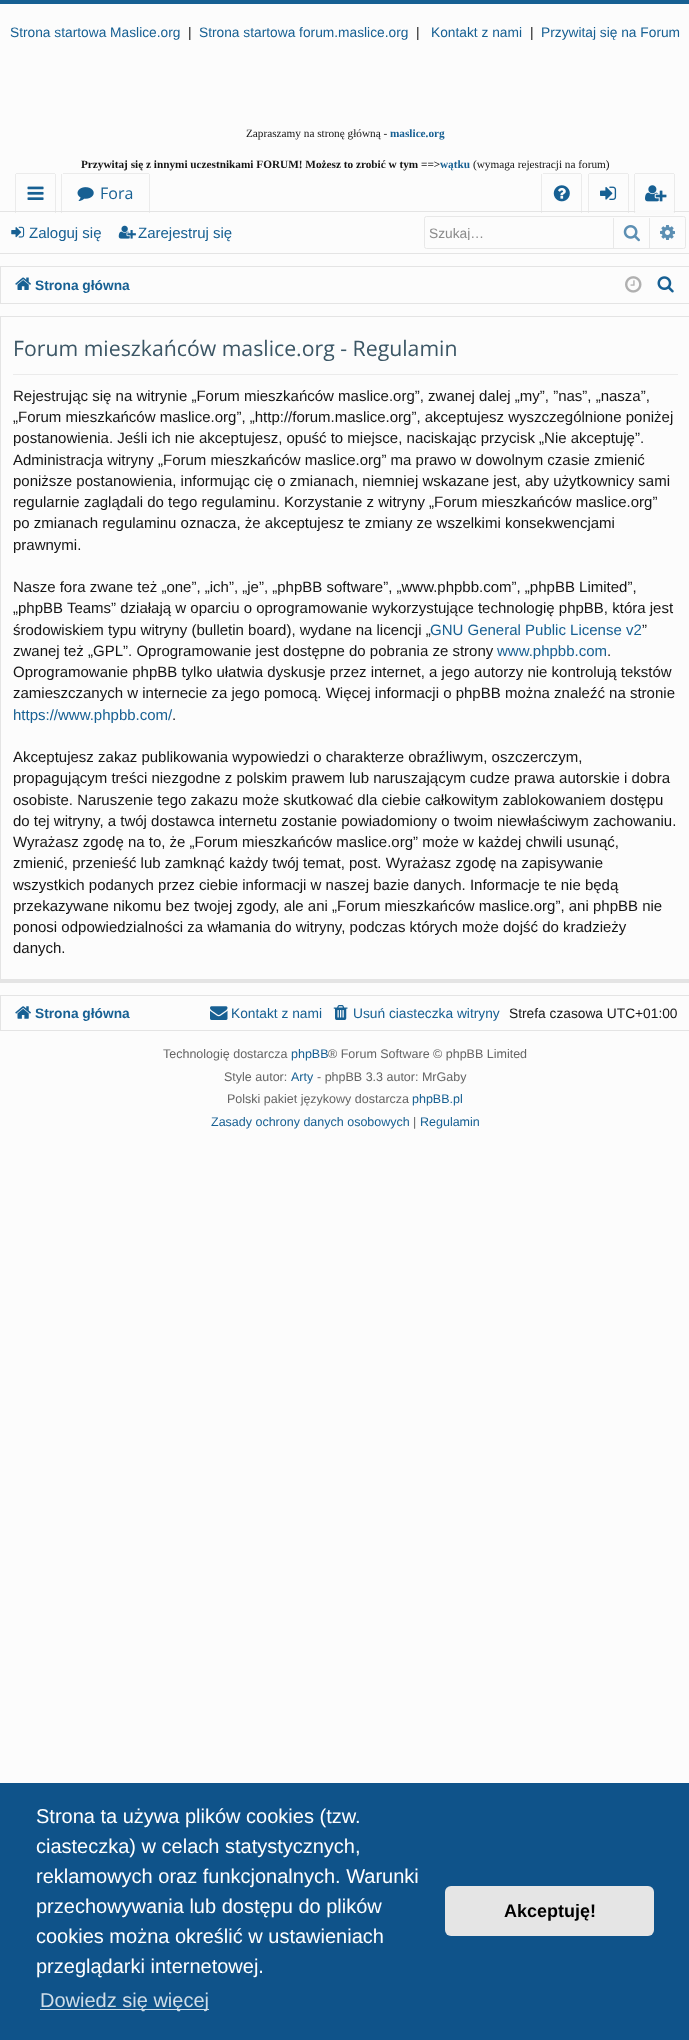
<!DOCTYPE html>
<meta charset="utf-8">
<style>body { margin: 0 } canvas { display: block }</style>
<canvas id="canvas" width="689" height="2040"></canvas>
<img id="img1" src="images/1.png" hidden>
<img id="img2" src="images/2.png" hidden>
<img id="img3" src="images/3.png" hidden>
<img id="img4" src="images/4.png" hidden>
<img id="img5" src="images/5.png" hidden>
<img id="img6" src="images/6.png" hidden>
<img id="img7" src="images/7.png" hidden>
<img id="img8" src="images/8.png" hidden>
<img id="img9" src="images/9.png" hidden>
<img id="img10" src="images/10.png" hidden>
<img id="img11" src="images/11.png" hidden>
<img id="img12" src="images/12.png" hidden>
<img id="img13" src="images/13.png" hidden>
<img id="img14" src="images/14.png" hidden>
<img id="img15" src="images/15.png" hidden>
<script>
window.onload = function () {
    const canvas = document.getElementById('canvas');
    const context = canvas.getContext('2d');
    context.miterLimit = 4;
    context.fontKerning = 'normal';

    context.fillStyle = 'rgb(252, 252, 252)';
    context.fillRect(0, 0, 689, 2040);
    context.fillStyle = 'rgb(23, 96, 147)';
    context.fillRect(0, 0, 689, 4);
    context.fillStyle = 'rgb(235, 235, 235)';
    context.fillRect(16, 173, 39, 1);
    context.fillRect(55, 174, 1, 39);
    context.fillRect(15, 174, 1, 39);
    context.drawImage(document.getElementById('img1'), 27, 186, 17, 14);
    context.fillRect(63, 173, 86, 1);
    context.fillRect(149, 174, 1, 39);
    context.fillRect(61, 174, 1, 39);
    context.drawImage(document.getElementById('img2'), 77, 187, 17, 14);
    context.fillRect(543, 173, 38, 1);
    context.fillRect(581, 174, 1, 39);
    context.fillRect(541, 174, 1, 39);
    context.drawImage(document.getElementById('img3'), 553, 185, 17, 17);
    context.fillRect(589, 173, 39, 1);
    context.fillRect(628, 174, 1, 39);
    context.fillRect(588, 174, 1, 39);
    context.drawImage(document.getElementById('img4'), 600, 186, 17, 14);
    context.fillRect(635, 173, 39, 1);
    context.fillRect(674, 174, 1, 39);
    context.fillRect(634, 174, 1, 39);
    context.drawImage(document.getElementById('img5'), 645, 185, 22, 17);
    context.fillStyle = 'rgb(228, 228, 228)';
    context.fillRect(0, 211, 689, 1);
    context.fillStyle = 'rgb(250, 250, 250)';
    context.beginPath();
    context.roundRect(635, 210, 39, 5, [2.5, 2.5, 0, 0]);
    context.fill();
    context.fillStyle = 'rgb(228, 228, 228)';
    context.fillRect(0, 253, 689, 1);
    context.drawImage(document.getElementById('img6'), 11, 226, 14, 12);
    context.drawImage(document.getElementById('img7'), 118, 225, 18, 14);
    context.beginPath();
    context.roundRect(424.5, 216.5, 261, 32, 2);
    context.strokeStyle = 'rgb(232, 232, 232)';
    context.stroke();
    context.fillStyle = 'rgb(232, 232, 232)';
    context.fillRect(649, 218, 1, 30);
    context.fillRect(613, 218, 1, 30);
    context.drawImage(document.getElementById('img8'), 623, 225, 17, 17);
    context.drawImage(document.getElementById('img9'), 660, 225, 15, 15);
    context.strokeStyle = 'rgb(228, 228, 228)';
    context.strokeRect(0.5, 266.5, 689, 37);
    context.drawImage(document.getElementById('img10'), 15, 277, 16, 13);
    context.drawImage(document.getElementById('img11'), 625, 276, 17, 17);
    context.drawImage(document.getElementById('img12'), 657, 276, 17, 17);
    context.fillStyle = 'rgb(228, 228, 228)';
    context.fillRect(0, 316, 689, 1);
    context.fillRect(0, 979, 689, 4);
    context.fillRect(0, 316, 1, 667);
    context.fillStyle = 'rgb(235, 235, 235)';
    context.fillRect(13, 374, 665, 1);
    context.strokeRect(0.5, 995.5, 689, 35);
    context.drawImage(document.getElementById('img13'), 15, 1006, 16, 13);
    context.drawImage(document.getElementById('img14'), 210, 1006, 18, 14);
    context.drawImage(document.getElementById('img15'), 333, 1005, 15, 15);
    context.fillStyle = 'rgb(15, 83, 138)';
    context.fillRect(0, 1783, 689, 257);
    context.fillStyle = 'rgb(207, 221, 232)';
    context.fillRect(40, 2009, 169, 1);
    context.fillStyle = 'rgb(229, 229, 229)';
    context.beginPath();
    context.roundRect(445, 1886, 209, 50, 6);
    context.fill();
    context.font = '13.75px Liberation Sans';
    context.fillStyle = 'rgb(23, 96, 147)';
    context.fillText('Strona startowa Maslice.org', 10, 37);
    context.fillStyle = 'rgb(20, 20, 20)';
    context.fillText('|', 188, 37);
    context.fillStyle = 'rgb(23, 96, 147)';
    context.fillText('Strona startowa forum.maslice.org', 199, 37);
    context.fillStyle = 'rgb(20, 20, 20)';
    context.fillText('|', 416, 37);
    context.fillStyle = 'rgb(23, 96, 147)';
    context.fillText('Kontakt z nami', 431, 37);
    context.fillStyle = 'rgb(20, 20, 20)';
    context.fillText('|', 530, 37);
    context.fillStyle = 'rgb(23, 96, 147)';
    context.fillText('Przywitaj się na Forum', 541, 37);
    context.font = 'bold 11.25px Liberation Serif';
    context.fillText('maslice.org', 390, 137);
    context.fillStyle = 'rgb(20, 20, 20)';
    context.fillText('Przywitaj się z innymi uczestnikami FORUM! Możesz to zrobić w tym ==>', 81, 168);
    context.fillStyle = 'rgb(23, 96, 147)';
    context.fillText('wątku', 440, 168);
    context.font = '11.25px Liberation Serif';
    context.fillStyle = 'rgb(20, 20, 20)';
    context.fillText('Zapraszamy na stronę główną -', 246, 137);
    context.fillText('(wymaga rejestracji na forum)', 473, 168);
    context.font = '16px Open Sans';
    context.fillStyle = 'rgb(23, 96, 147)';
    context.fillText('Fora', 100, 199);
    context.font = '15px Liberation Sans';
    context.fillText('Zaloguj się', 29, 238);
    context.fillText('Zarejestruj się', 138, 238);
    context.save();
    context.beginPath();
    context.rect(429, 225, 175, 15);
    context.clip();
    context.font = '13.75px Liberation Sans';
    context.fillStyle = 'rgb(139, 139, 139)';
    context.fillText('Szukaj…', 429, 238);
    context.restore();
    context.font = 'bold 13.75px Liberation Sans';
    context.fillText('Strona główna', 35, 290);
    context.font = '21.25px Open Sans';
    context.fillStyle = 'rgb(59, 86, 101)';
    context.fillText('Forum mieszkańców maslice.org - Regulamin', 13, 356);
    context.font = '15px Liberation Sans';
    context.fillStyle = 'rgb(20, 20, 20)';
    context.fillText('Rejestrując się na witrynie „Forum mieszkańców maslice.org”, zwanej dalej „my”, ”nas”, „nasza”,', 13, 401);
    context.fillText('„Forum mieszkańców maslice.org”, „http://forum.maslice.org”, akceptujesz wyszczególnione poniżej', 13, 422);
    context.fillText('postanowienia. Jeśli ich nie akceptujesz, opuść to miejsce, naciskając przycisk „Nie akceptuję”.', 13, 443);
    context.fillText('Administracja witryny „Forum mieszkańców maslice.org” ma prawo w dowolnym czasie zmienić', 13, 465);
    context.fillText('poniższe postanowienia, informując cię o zmianach, niemniej wskazane jest, aby użytkownicy sami', 13, 486);
    context.fillText('regularnie zaglądali do tego regulaminu. Korzystanie z witryny „Forum mieszkańców maslice.org”', 13, 507);
    context.fillText('po zmianach regulaminu oznacza, że akceptujesz te zmiany ze wszelkimi konsekwencjami', 13, 528);
    context.fillText('prawnymi.', 13, 550);
    context.fillText('Nasze fora zwane też „one”, „ich”, „je”, „phpBB software”, „www.phpbb.com”, „phpBB Limited”,', 13, 592);
    context.fillText('„phpBB Teams” działają w oparciu o oprogramowanie wykorzystujące technologię phpBB, która jest', 13, 613);
    context.fillText('środowiskiem typu witryny (bulletin board), wydane na licencji „', 13, 635);
    context.fillStyle = 'rgb(23, 96, 147)';
    context.fillText('GNU General Public License v2', 430, 635);
    context.fillStyle = 'rgb(20, 20, 20)';
    context.fillText('”', 642, 635);
    context.fillText('zwanej też „GPL”. Oprogramowanie jest dostępne do pobrania ze strony', 13, 656);
    context.fillStyle = 'rgb(23, 96, 147)';
    context.fillText('www.phpbb.com', 497, 656);
    context.fillStyle = 'rgb(20, 20, 20)';
    context.fillText('.', 607, 656);
    context.fillText('Oprogramowanie phpBB tylko ułatwia dyskusje przez internet, a jego autorzy nie kontrolują tekstów', 13, 677);
    context.fillText('zamieszczanych w internecie za jego pomocą. Więcej informacji o phpBB można znaleźć na stronie', 13, 698);
    context.fillStyle = 'rgb(23, 96, 147)';
    context.fillText('https://www.phpbb.com/', 13, 720);
    context.fillStyle = 'rgb(20, 20, 20)';
    context.fillText('.', 172, 720);
    context.fillText('Akceptujesz zakaz publikowania wypowiedzi o charakterze obraźliwym, oszczerczym,', 13, 762);
    context.fillText('propagującym treści niezgodne z polskim prawem lub naruszającym cudze prawa autorskie i dobra', 13, 783);
    context.fillText('osobiste. Naruszenie tego zakazu może skutkować dla ciebie całkowitym zablokowaniem dostępu', 13, 805);
    context.fillText('do tej witryny, a twój dostawca internetu zostanie powiadomiony o twoim niewłaściwym zachowaniu.', 13, 826);
    context.fillText('Wyrażasz zgodę na to, że „Forum mieszkańców maslice.org” może w każdej chwili usunąć,', 13, 847);
    context.fillText('zmienić, przenieść lub zamknąć każdy twój temat, post. Wyrażasz zgodę na zapisywanie', 13, 868);
    context.fillText('wszystkich podanych przez ciebie informacji w naszej bazie danych. Informacje te nie będą', 13, 890);
    context.fillText('przekazywane nikomu bez twojej zgody, ale ani „Forum mieszkańców maslice.org”, ani phpBB nie', 13, 911);
    context.fillText('ponosi odpowiedzialności za włamania do witryny, podczas których może dojść do kradzieży', 13, 932);
    context.fillText('danych.', 13, 953);
    context.font = 'bold 13.75px Liberation Sans';
    context.fillStyle = 'rgb(23, 96, 147)';
    context.fillText('Strona główna', 35, 1018);
    context.font = '13.75px Liberation Sans';
    context.fillText('Kontakt z nami', 231, 1018);
    context.fillText('Usuń ciasteczka witryny', 353, 1018);
    context.fillStyle = 'rgb(20, 20, 20)';
    context.fillText('Strefa czasowa UTC+01:00', 509, 1018);
    context.font = '12.5px Liberation Sans';
    context.fillStyle = 'rgb(101, 101, 101)';
    context.fillText('Technologię dostarcza', 163, 1058);
    context.fillStyle = 'rgb(23, 96, 147)';
    context.fillText('phpBB', 291, 1058);
    context.fillStyle = 'rgb(101, 101, 101)';
    context.fillText('® Forum Software © phpBB Limited', 328, 1058);
    context.fillText('Style autor:', 224, 1081);
    context.fillStyle = 'rgb(23, 96, 147)';
    context.fillText('Arty', 291, 1081);
    context.fillStyle = 'rgb(101, 101, 101)';
    context.fillText('- phpBB 3.3 autor: MrGaby', 317, 1081);
    context.fillText('Polski pakiet językowy dostarcza', 227, 1103);
    context.fillStyle = 'rgb(23, 96, 147)';
    context.fillText('phpBB.pl', 412, 1103);
    context.fillText('Zasady ochrony danych osobowych', 211, 1126);
    context.fillStyle = 'rgb(101, 101, 101)';
    context.fillText('|', 413, 1126);
    context.fillStyle = 'rgb(23, 96, 147)';
    context.fillText('Regulamin', 420, 1126);
    context.font = '20px Liberation Sans';
    context.fillStyle = 'rgb(255, 255, 255)';
    context.fillText('Strona ta używa plików cookies (tzw.', 36, 1823);
    context.fillText('ciasteczka) w celach statystycznych,', 36, 1853);
    context.fillText('reklamowych oraz funkcjonalnych. Warunki', 36, 1883);
    context.fillText('przechowywania lub dostępu do plików', 36, 1913);
    context.fillText('cookies można określić w ustawieniach', 36, 1943);
    context.fillText('przeglądarki internetowej.', 36, 1973);
    context.fillStyle = 'rgb(207, 221, 232)';
    context.fillText('Dowiedz się więcej', 40, 2007);
    context.font = 'bold 18px Liberation Sans';
    context.fillStyle = 'rgb(0, 0, 0)';
    context.fillText('Akceptuję!', 504, 1917);
};
</script>
